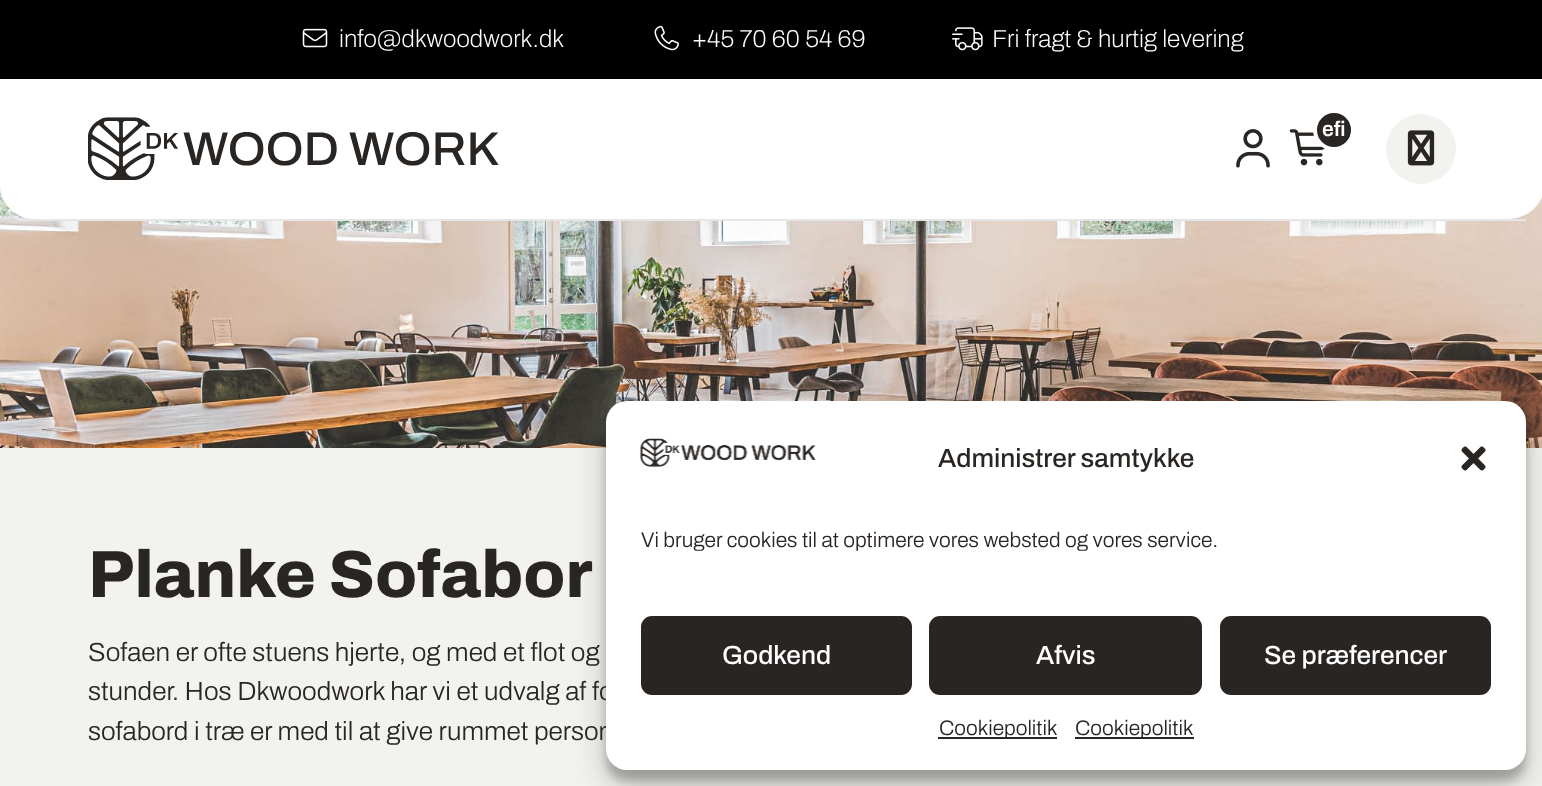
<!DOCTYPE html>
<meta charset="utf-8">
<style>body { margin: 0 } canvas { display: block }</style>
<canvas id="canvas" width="1542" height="786"></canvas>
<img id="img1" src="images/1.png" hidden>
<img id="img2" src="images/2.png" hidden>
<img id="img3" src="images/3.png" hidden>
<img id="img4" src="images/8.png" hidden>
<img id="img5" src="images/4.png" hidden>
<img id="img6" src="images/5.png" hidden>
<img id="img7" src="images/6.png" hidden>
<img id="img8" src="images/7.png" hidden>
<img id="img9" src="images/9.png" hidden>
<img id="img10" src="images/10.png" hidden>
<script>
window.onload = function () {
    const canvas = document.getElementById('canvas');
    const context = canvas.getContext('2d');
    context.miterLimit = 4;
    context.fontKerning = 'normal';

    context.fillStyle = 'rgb(0, 0, 0)';
    context.fillRect(0, 0, 1542, 786);
    context.drawImage(document.getElementById('img1'), 302, 28, 26, 20);
    context.drawImage(document.getElementById('img2'), 654, 25, 25, 26);
    context.drawImage(document.getElementById('img3'), 952, 27, 31, 24);
    context.drawImage(document.getElementById('img4'), 0, 186, 1542, 262);
    context.fillStyle = 'rgb(255, 255, 255)';
    context.beginPath();
    context.moveTo(0, 79);
    context.lineTo(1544, 79);
    context.lineTo(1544, 186);
    context.bezierCurveTo(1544, 204, 1528, 219, 1508, 219);
    context.lineTo(35, 219);
    context.bezierCurveTo(16, 219, 0, 204, 0, 186);
    context.closePath();
    context.fill();
    context.fillStyle = 'rgb(230, 230, 230)';
    context.fillRect(18, 219, 1508, 2);
    context.drawImage(document.getElementById('img5'), 88, 117, 411, 63);
    context.drawImage(document.getElementById('img6'), 1236, 129, 34, 39);
    context.drawImage(document.getElementById('img7'), 1289, 129, 36, 37);
    context.fillStyle = 'rgb(41, 37, 35)';
    context.beginPath();
    context.arc(1334, 130, 19, 0, 2 * Math.PI);
    context.fill();
    context.strokeStyle = 'rgb(255, 255, 255)';
    context.lineWidth = 4;
    context.stroke();
    context.fillStyle = 'rgb(242, 242, 239)';
    context.beginPath();
    context.arc(1421, 149, 35, 0, 2 * Math.PI);
    context.fill();
    context.drawImage(document.getElementById('img8'), 1407, 130, 28, 36);
    context.fillRect(0, 448, 1542, 338);
    context.fillStyle = 'rgba(0, 0, 0, 0.23)';
    context.filter = 'blur(5px)';
    context.beginPath();
    context.roundRect(606, 411, 920, 370, 21);
    context.fill();
    context.filter = 'none';
    context.fillStyle = 'rgba(0, 0, 0, 0.19)';
    context.filter = 'blur(17.5px)';
    context.beginPath();
    context.roundRect(606, 418, 920, 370, 21);
    context.fill();
    context.filter = 'none';
    context.font = '200 24.5px Archivo';
    context.fillStyle = 'rgb(255, 255, 255)';
    context.fillText('info@dkwoodwork.dk', 339, 47);
    context.fillText('+45 70 60 54 69', 692, 47);
    context.fillText('Fri fragt & hurtig levering', 992, 47);
    context.font = '600 21px Archivo';
    context.fillText('efi', 1322, 136);
    context.font = '800 66.5px Archivo';
    context.fillStyle = 'rgb(41, 37, 35)';
    context.fillText('Planke Sofabor', 88, 597);
    context.font = '300 26.25px Archivo';
    context.fillText('Sofaen er ofte stuens hjerte, og med et flot og', 88, 661);
    context.fillText('stunder. Hos Dkwoodwork har vi et udvalg af fo', 88, 700);
    context.fillText('sofabord i træ er med til at give rummet person', 88, 740);
    context.fillStyle = 'rgb(255, 255, 255)';
    context.beginPath();
    context.roundRect(606, 401, 920, 369, 21);
    context.fill();
    context.drawImage(document.getElementById('img9'), 640, 438, 176, 29);
    context.font = '500 26.25px Archivo';
    context.fillStyle = 'rgb(41, 37, 35)';
    context.fillText('Administrer samtykke', 938, 467);
    context.drawImage(document.getElementById('img10'), 1461, 446, 25, 25);
    context.font = '300 21px Archivo';
    context.fillText('Vi bruger cookies til at optimere vores websted og vores service.', 641, 547);
    context.beginPath();
    context.roundRect(642, 617, 269, 77, 10);
    context.fill();
    context.strokeStyle = 'rgb(41, 37, 35)';
    context.lineWidth = 2;
    context.stroke();
    context.font = '500 26.25px Archivo';
    context.fillStyle = 'rgb(255, 255, 255)';
    context.fillText('Godkend', 722, 664);
    context.fillStyle = 'rgb(41, 37, 35)';
    context.beginPath();
    context.roundRect(930, 617, 271, 77, 10);
    context.fill();
    context.stroke();
    context.fillStyle = 'rgb(255, 255, 255)';
    context.fillText('Afvis', 1036, 664);
    context.fillStyle = 'rgb(41, 37, 35)';
    context.beginPath();
    context.roundRect(1221, 617, 269, 77, 10);
    context.fill();
    context.stroke();
    context.fillStyle = 'rgb(255, 255, 255)';
    context.fillText('Se præferencer', 1264, 664);
    context.fillStyle = 'rgb(41, 37, 35)';
    context.fillRect(938, 737, 119, 2);
    context.font = '300 21px Archivo';
    context.fillText('Cookiepolitik', 939, 735);
    context.fillRect(1075, 737, 119, 2);
    context.fillText('Cookiepolitik', 1075, 735);
};
</script>
